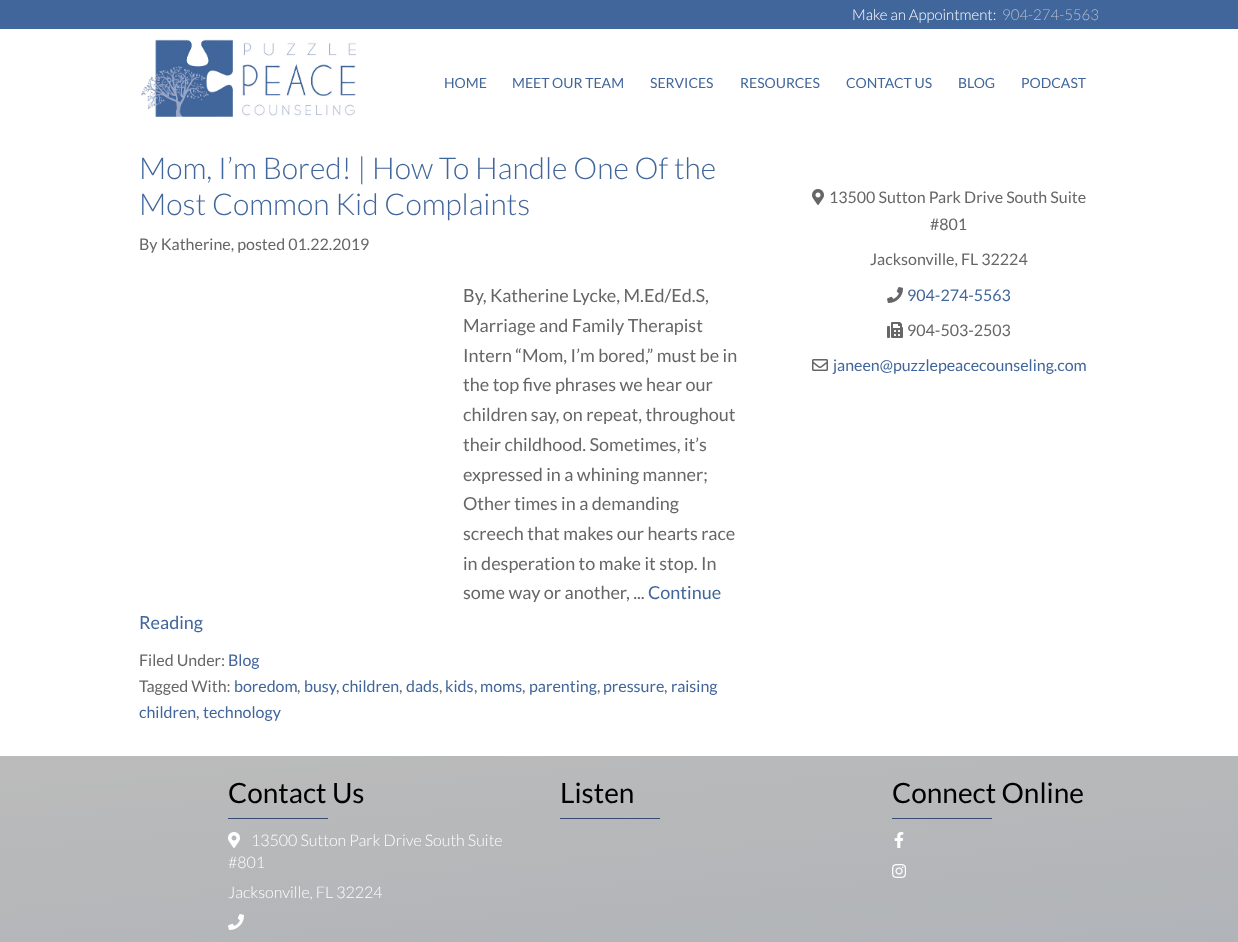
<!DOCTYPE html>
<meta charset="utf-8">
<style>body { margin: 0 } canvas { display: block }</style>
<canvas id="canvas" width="1238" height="942"></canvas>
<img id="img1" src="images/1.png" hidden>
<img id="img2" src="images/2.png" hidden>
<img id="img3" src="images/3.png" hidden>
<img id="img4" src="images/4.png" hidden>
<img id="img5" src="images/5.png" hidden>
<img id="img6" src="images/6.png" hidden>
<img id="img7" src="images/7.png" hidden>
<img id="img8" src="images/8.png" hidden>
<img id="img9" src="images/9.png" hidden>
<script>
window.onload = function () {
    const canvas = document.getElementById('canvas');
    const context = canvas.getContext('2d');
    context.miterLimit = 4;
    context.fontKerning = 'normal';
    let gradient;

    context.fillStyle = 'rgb(255, 255, 255)';
    context.fillRect(0, 0, 1238, 942);
    context.fillStyle = 'rgb(65, 102, 155)';
    context.fillRect(0, 0, 1238, 29);
    context.drawImage(document.getElementById('img1'), 141, 39, 215, 78);
    context.drawImage(document.getElementById('img2'), 812, 189, 12, 16);
    context.drawImage(document.getElementById('img3'), 887, 287, 16, 16);
    context.drawImage(document.getElementById('img4'), 887, 322, 16, 16);
    context.drawImage(document.getElementById('img5'), 812, 359, 16, 12);
    gradient = context.createLinearGradient(474, 715, 764, 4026);
    gradient.addColorStop(0, 'rgb(187, 187, 187)');
    gradient.addColorStop(1, 'rgb(65, 102, 155)');
    context.fillStyle = gradient;
    context.fillRect(0, 756, 1238, 186);
    context.fillStyle = 'rgb(58, 75, 115)';
    context.fillRect(228, 818, 100, 1);
    context.drawImage(document.getElementById('img6'), 228, 832, 12, 16);
    context.drawImage(document.getElementById('img7'), 228, 914, 16, 16);
    context.fillRect(560, 818, 100, 1);
    context.fillRect(892, 818, 100, 1);
    context.drawImage(document.getElementById('img8'), 894, 832, 10, 16);
    context.drawImage(document.getElementById('img9'), 892, 864, 14, 14);
    context.font = '300 15px Lato';
    context.fillStyle = 'rgb(255, 255, 255)';
    context.fillText('Make an Appointment:', 852, 20);
    context.fillStyle = 'rgb(182, 189, 205)';
    context.fillText('904-274-5563', 1002, 20);
    context.font = '14px Lato';
    context.fillStyle = 'rgb(65, 102, 155)';
    context.fillText('HOME', 444, 88);
    context.fillText('MEET OUR TEAM', 512, 88);
    context.fillText('SERVICES', 650, 88);
    context.fillText('RESOURCES', 740, 88);
    context.fillText('CONTACT US', 846, 88);
    context.fillText('BLOG', 958, 88);
    context.fillText('PODCAST', 1021, 88);
    context.font = '300 30px Lato';
    context.fillText('Mom, I’m Bored! | How To Handle One Of the', 139, 179);
    context.fillText('Most Common Kid Complaints', 139, 215);
    context.font = '16px Lato';
    context.fillStyle = 'rgb(102, 102, 102)';
    context.fillText('By Katherine, posted 01.22.2019', 139, 250);
    context.font = '18px Lato';
    context.fillText('By, Katherine Lycke, M.Ed/Ed.S,', 463, 302);
    context.fillText('Marriage and Family Therapist', 463, 332);
    context.fillText('Intern “Mom, I’m bored,” must be in', 463, 362);
    context.fillText('the top five phrases we hear our', 463, 391);
    context.fillText('children say, on repeat, throughout', 463, 421);
    context.fillText('their childhood. Sometimes, it’s', 463, 451);
    context.fillText('expressed in a whining manner;', 463, 481);
    context.fillText('Other times in a demanding', 463, 510);
    context.fillText('screech that makes our hearts race', 463, 540);
    context.fillText('in desperation to make it stop. In', 463, 570);
    context.fillText('some way or another, ...', 463, 599);
    context.fillStyle = 'rgb(65, 102, 155)';
    context.fillText('Continue', 648, 599);
    context.fillText('Reading', 139, 629);
    context.font = '16px Lato';
    context.fillStyle = 'rgb(102, 102, 102)';
    context.fillText('Filed Under:', 139, 666);
    context.fillStyle = 'rgb(65, 102, 155)';
    context.fillText('Blog', 228, 666);
    context.fillStyle = 'rgb(102, 102, 102)';
    context.fillText('Tagged With:', 139, 692);
    context.fillStyle = 'rgb(65, 102, 155)';
    context.fillText('boredom', 234, 692);
    context.fillStyle = 'rgb(102, 102, 102)';
    context.fillText(',', 297, 692);
    context.fillStyle = 'rgb(65, 102, 155)';
    context.fillText('busy', 304, 692);
    context.fillStyle = 'rgb(102, 102, 102)';
    context.fillText(',', 336, 692);
    context.fillStyle = 'rgb(65, 102, 155)';
    context.fillText('children', 342, 692);
    context.fillStyle = 'rgb(102, 102, 102)';
    context.fillText(',', 399, 692);
    context.fillStyle = 'rgb(65, 102, 155)';
    context.fillText('dads', 406, 692);
    context.fillStyle = 'rgb(102, 102, 102)';
    context.fillText(',', 439, 692);
    context.fillStyle = 'rgb(65, 102, 155)';
    context.fillText('kids', 445, 692);
    context.fillStyle = 'rgb(102, 102, 102)';
    context.fillText(',', 474, 692);
    context.fillStyle = 'rgb(65, 102, 155)';
    context.fillText('moms', 480, 692);
    context.fillStyle = 'rgb(102, 102, 102)';
    context.fillText(',', 522, 692);
    context.fillStyle = 'rgb(65, 102, 155)';
    context.fillText('parenting', 529, 692);
    context.fillStyle = 'rgb(102, 102, 102)';
    context.fillText(',', 597, 692);
    context.fillStyle = 'rgb(65, 102, 155)';
    context.fillText('pressure', 603, 692);
    context.fillStyle = 'rgb(102, 102, 102)';
    context.fillText(',', 664, 692);
    context.fillStyle = 'rgb(65, 102, 155)';
    context.fillText('raising', 671, 692);
    context.fillText('children', 139, 718);
    context.fillStyle = 'rgb(102, 102, 102)';
    context.fillText(',', 196, 718);
    context.fillStyle = 'rgb(65, 102, 155)';
    context.fillText('technology', 203, 718);
    context.fillStyle = 'rgb(102, 102, 102)';
    context.fillText('13500 Sutton Park Drive South Suite', 829, 203);
    context.fillText('#801', 930, 230);
    context.fillText('Jacksonville, FL 32224', 870, 265);
    context.fillStyle = 'rgb(65, 102, 155)';
    context.fillText('904-274-5563', 907, 301);
    context.fillStyle = 'rgb(102, 102, 102)';
    context.fillText('904-503-2503', 907, 336);
    context.fillStyle = 'rgb(65, 102, 155)';
    context.fillText('janeen@puzzlepeacecounseling.com', 833, 371);
    context.font = '28px Lato';
    context.fillStyle = 'rgb(0, 0, 0)';
    context.fillText('Contact Us', 228, 803);
    context.font = '300 16px Lato';
    context.fillStyle = 'rgb(255, 255, 255)';
    context.fillText('13500 Sutton Park Drive South Suite', 251, 846);
    context.fillText('#801', 228, 868);
    context.fillText('Jacksonville, FL 32224', 228, 898);
    context.font = '28px Lato';
    context.fillStyle = 'rgb(0, 0, 0)';
    context.fillText('Listen', 560, 803);
    context.fillText('Connect Online', 892, 803);
};
</script>
